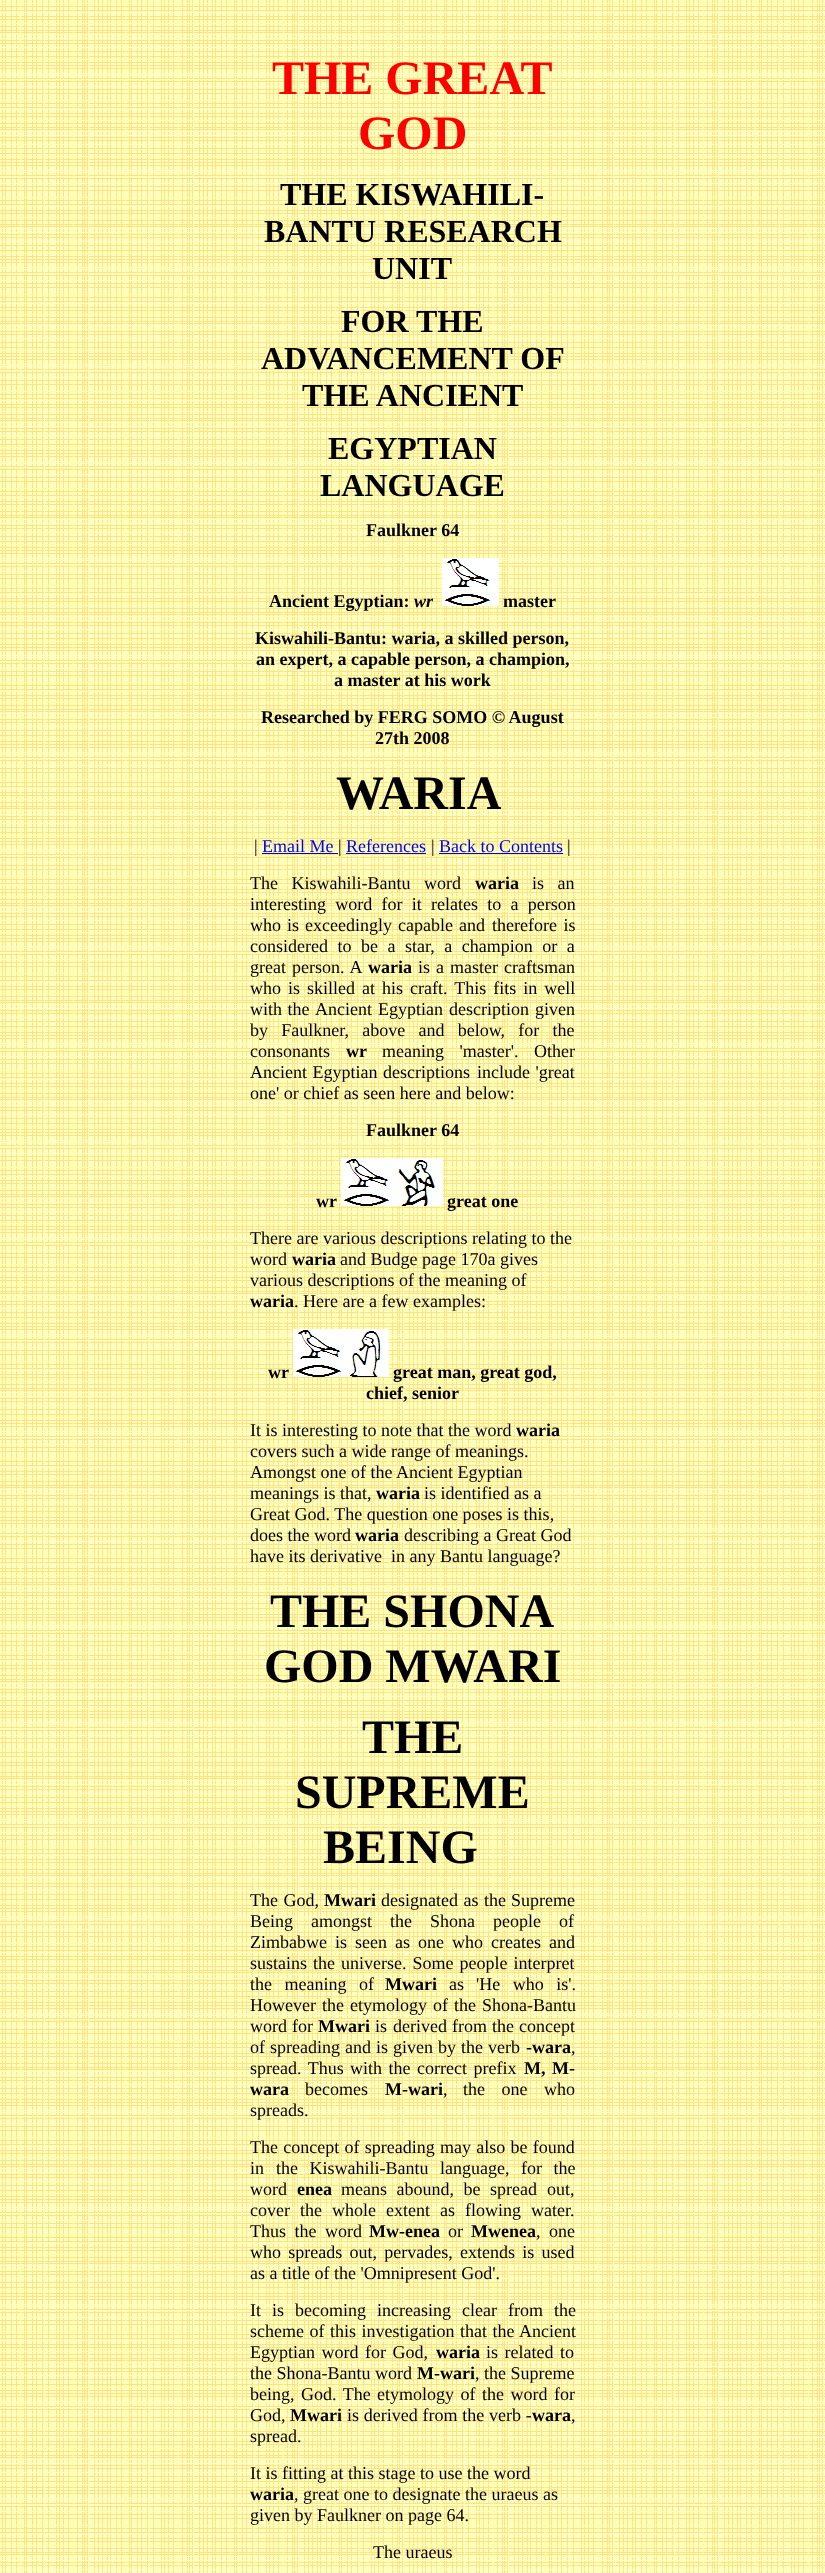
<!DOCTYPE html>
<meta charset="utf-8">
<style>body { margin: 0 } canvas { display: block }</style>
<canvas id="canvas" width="825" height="2573"></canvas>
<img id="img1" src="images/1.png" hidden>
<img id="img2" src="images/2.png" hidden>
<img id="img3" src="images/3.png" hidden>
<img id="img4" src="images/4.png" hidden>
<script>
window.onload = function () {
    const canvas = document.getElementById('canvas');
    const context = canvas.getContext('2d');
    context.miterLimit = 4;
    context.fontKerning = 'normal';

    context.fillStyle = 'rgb(255, 255, 255)';
    context.fillRect(0, 0, 825, 2573);
    context.drawImage(document.getElementById('img1'), 0, 0, 825, 2573);
    context.drawImage(document.getElementById('img2'), 442, 558, 57, 48);
    context.fillStyle = 'rgb(0, 0, 238)';
    context.fillRect(262, 853, 76, 1);
    context.fillRect(346, 853, 80, 1);
    context.fillRect(439, 853, 124, 1);
    context.drawImage(document.getElementById('img3'), 341, 1158, 102, 48);
    context.drawImage(document.getElementById('img4'), 293, 1329, 96, 48);
    context.font = 'bold 48px Liberation Serif';
    context.fillStyle = 'rgb(255, 0, 0)';
    context.fillText('THE GREAT', 272, 94);
    context.fillText('GOD', 358, 149);
    context.font = 'bold 32px Liberation Serif';
    context.fillStyle = 'rgb(0, 0, 0)';
    context.fillText('THE KISWAHILI-', 280, 205);
    context.fillText('BANTU RESEARCH', 264, 242);
    context.fillText('UNIT', 372, 279);
    context.fillText('FOR THE', 341, 332);
    context.fillText('ADVANCEMENT OF', 261, 369);
    context.fillText('THE ANCIENT', 302, 406);
    context.fillText('EGYPTIAN', 328, 459);
    context.fillText('LANGUAGE', 320, 496);
    context.font = 'bold 18px Liberation Serif';
    context.fillText('Faulkner 64', 366, 536);
    context.fillText('Ancient Egyptian:', 269, 607);
    context.font = 'italic bold 18px Liberation Serif';
    context.fillText('wr', 414, 607);
    context.font = 'bold 18px Liberation Serif';
    context.fillText('master', 503, 607);
    context.fillText('Kiswahili-Bantu: waria, a skilled person,', 255, 644);
    context.fillText('an expert, a capable person, a champion,', 256, 665);
    context.fillText('a master at his work', 334, 686);
    context.fillText('Researched by FERG SOMO © August', 261, 723);
    context.fillText('27th 2008', 375, 744);
    context.font = 'bold 48px Liberation Serif';
    context.fillText('WARIA', 336, 809);
    context.font = '18px Liberation Serif';
    context.fillText('|', 254, 852);
    context.fillStyle = 'rgb(0, 0, 238)';
    context.fillText('Email Me', 262, 852);
    context.fillStyle = 'rgb(0, 0, 0)';
    context.fillText('|', 338, 852);
    context.fillStyle = 'rgb(0, 0, 238)';
    context.fillText('References', 346, 852);
    context.fillStyle = 'rgb(0, 0, 0)';
    context.fillText('|', 431, 852);
    context.fillStyle = 'rgb(0, 0, 238)';
    context.fillText('Back to Contents', 439, 852);
    context.fillStyle = 'rgb(0, 0, 0)';
    context.fillText('|', 567, 852);
    context.wordSpacing = '9px';
    context.fillText('The Kiswahili-Bantu word', 250, 889);
    context.wordSpacing = '0px';
    context.font = 'bold 18px Liberation Serif';
    context.fillText('waria', 475, 889);
    context.wordSpacing = '9px';
    context.font = '18px Liberation Serif';
    context.fillText('is an', 532, 889);
    context.wordSpacing = '4.75px';
    context.fillText('interesting word for it relates to a person', 250, 910);
    context.wordSpacing = '1.5px';
    context.fillText('who is exceedingly capable and', 250, 931);
    context.wordSpacing = '2px';
    context.fillText('therefore is', 492, 931);
    context.wordSpacing = '5px';
    context.fillText('considered to be a star, a champion or a', 250, 952);
    context.wordSpacing = '1.5px';
    context.fillText('great person. A', 250, 973);
    context.wordSpacing = '0px';
    context.font = 'bold 18px Liberation Serif';
    context.fillText('waria', 368, 973);
    context.wordSpacing = '1.5px';
    context.font = '18px Liberation Serif';
    context.fillText('is a master craftsman', 418, 973);
    context.wordSpacing = '2.5px';
    context.fillText('who is skilled at his craft. This fits in well', 250, 994);
    context.wordSpacing = '1px';
    context.fillText('with the', 250, 1015);
    context.wordSpacing = '1.5px';
    context.fillText('Ancient Egyptian description given', 315, 1015);
    context.wordSpacing = '8.75px';
    context.fillText('by Faulkner, above and below, for the', 250, 1036);
    context.wordSpacing = '0px';
    context.fillText('consonants', 250, 1057);
    context.font = 'bold 18px Liberation Serif';
    context.fillText('wr', 346, 1057);
    context.wordSpacing = '11px';
    context.font = '18px Liberation Serif';
    context.fillText('meaning \'master\'. Other', 382, 1057);
    context.wordSpacing = '1px';
    context.fillText('Ancient Egyptian descriptions', 250, 1078);
    context.fillText('include \'great', 477, 1078);
    context.wordSpacing = '0px';
    context.fillText('one\' or chief as seen here and below:', 250, 1099);
    context.font = 'bold 18px Liberation Serif';
    context.fillText('Faulkner 64', 366, 1136);
    context.fillText('wr', 316, 1207);
    context.fillText('great one', 447, 1207);
    context.font = '18px Liberation Serif';
    context.fillText('There are various descriptions relating to the', 250, 1244);
    context.fillText('word', 250, 1265);
    context.font = 'bold 18px Liberation Serif';
    context.fillText('waria', 292, 1265);
    context.font = '18px Liberation Serif';
    context.fillText('and Budge page 170a gives', 340, 1265);
    context.fillText('various descriptions of the meaning of', 250, 1286);
    context.font = 'bold 18px Liberation Serif';
    context.fillText('waria', 250, 1307);
    context.font = '18px Liberation Serif';
    context.fillText('. Here are a few examples:', 294, 1307);
    context.font = 'bold 18px Liberation Serif';
    context.fillText('wr', 268, 1378);
    context.fillText('great man, great god,', 393, 1378);
    context.fillText('chief, senior', 366, 1399);
    context.font = '18px Liberation Serif';
    context.fillText('It is interesting to note that the word', 250, 1436);
    context.font = 'bold 18px Liberation Serif';
    context.fillText('waria', 516, 1436);
    context.font = '18px Liberation Serif';
    context.fillText('covers such a wide range of meanings.', 250, 1457);
    context.fillText('Amongst one of the Ancient Egyptian', 250, 1478);
    context.fillText('meanings is that,', 250, 1499);
    context.font = 'bold 18px Liberation Serif';
    context.fillText('waria', 376, 1499);
    context.font = '18px Liberation Serif';
    context.fillText('is identified as a', 424, 1499);
    context.fillText('Great God. The question one poses is this,', 250, 1520);
    context.fillText('does the word', 250, 1541);
    context.font = 'bold 18px Liberation Serif';
    context.fillText('waria', 355, 1541);
    context.font = '18px Liberation Serif';
    context.fillText('describing a Great God', 404, 1541);
    context.fillText('have its derivative  in any Bantu language?', 250, 1562);
    context.font = 'bold 48px Liberation Serif';
    context.fillText('THE SHONA', 270, 1627);
    context.fillText('GOD MWARI', 264, 1682);
    context.fillText('THE', 362, 1753);
    context.fillText('SUPREME', 295, 1808);
    context.fillText('BEING', 323, 1863);
    context.wordSpacing = '1px';
    context.font = '18px Liberation Serif';
    context.fillText('The God,', 250, 1906);
    context.wordSpacing = '0px';
    context.font = 'bold 18px Liberation Serif';
    context.fillText('Mwari', 324, 1906);
    context.wordSpacing = '1px';
    context.font = '18px Liberation Serif';
    context.fillText('designated as the', 381, 1906);
    context.wordSpacing = '0px';
    context.fillText('Supreme', 511, 1906);
    context.wordSpacing = '13.5px';
    context.fillText('Being amongst the Shona people of', 250, 1927);
    context.wordSpacing = '3.5px';
    context.fillText('Zimbabwe is seen as one who creates', 250, 1948);
    context.wordSpacing = '0px';
    context.fillText('and', 549, 1948);
    context.wordSpacing = '1.5px';
    context.fillText('sustains the universe. Some people interpret', 250, 1969);
    context.wordSpacing = '8px';
    context.fillText('the meaning of', 250, 1990);
    context.wordSpacing = '0px';
    context.font = 'bold 18px Liberation Serif';
    context.fillText('Mwari', 385, 1990);
    context.font = '18px Liberation Serif';
    context.fillText('as', 449, 1990);
    context.wordSpacing = '8px';
    context.fillText('\'He who is\'.', 476, 1990);
    context.wordSpacing = '1.5px';
    context.fillText('However the etymology of the Shona-Bantu', 250, 2011);
    context.wordSpacing = '0.5px';
    context.fillText('word for', 250, 2032);
    context.wordSpacing = '0px';
    context.font = 'bold 18px Liberation Serif';
    context.fillText('Mwari', 318, 2032);
    context.font = '18px Liberation Serif';
    context.fillText('is', 375, 2032);
    context.wordSpacing = '0.5px';
    context.fillText('derived from the concept', 393, 2032);
    context.fillText('of spreading and is given by the verb', 250, 2053);
    context.wordSpacing = '0px';
    context.font = 'bold 18px Liberation Serif';
    context.fillText('-wara', 526, 2053);
    context.font = '18px Liberation Serif';
    context.fillText(',', 571, 2053);
    context.wordSpacing = '2px';
    context.fillText('spread. Thus', 250, 2074);
    context.fillText('with the correct prefix', 350, 2074);
    context.font = 'bold 18px Liberation Serif';
    context.fillText('M, M-', 524, 2074);
    context.wordSpacing = '0px';
    context.fillText('wara', 250, 2095);
    context.font = '18px Liberation Serif';
    context.fillText('becomes', 305, 2095);
    context.font = 'bold 18px Liberation Serif';
    context.fillText('M-wari', 385, 2095);
    context.font = '18px Liberation Serif';
    context.fillText(',', 443, 2095);
    context.wordSpacing = '12px';
    context.fillText('the one who', 463, 2095);
    context.wordSpacing = '0px';
    context.fillText('spreads.', 250, 2116);
    context.wordSpacing = '0.75px';
    context.fillText('The concept of spreading may also be found', 250, 2153);
    context.wordSpacing = '0px';
    context.fillText('in', 250, 2174);
    context.wordSpacing = '7px';
    context.fillText('the Kiswahili-Bantu language, for the', 276, 2174);
    context.wordSpacing = '0px';
    context.fillText('word', 250, 2195);
    context.font = 'bold 18px Liberation Serif';
    context.fillText('enea', 297, 2195);
    context.wordSpacing = '5px';
    context.font = '18px Liberation Serif';
    context.fillText('means abound, be spread', 341, 2195);
    context.wordSpacing = '0px';
    context.fillText('out,', 547, 2195);
    context.wordSpacing = '5.5px';
    context.fillText('cover the whole extent as flowing water.', 250, 2216);
    context.wordSpacing = '4px';
    context.fillText('Thus the word', 250, 2237);
    context.wordSpacing = '0px';
    context.font = 'bold 18px Liberation Serif';
    context.fillText('Mw-enea', 369, 2237);
    context.font = '18px Liberation Serif';
    context.fillText('or', 448, 2237);
    context.font = 'bold 18px Liberation Serif';
    context.fillText('Mwenea', 471, 2237);
    context.wordSpacing = '4px';
    context.font = '18px Liberation Serif';
    context.fillText(', one', 536, 2237);
    context.wordSpacing = '2.75px';
    context.fillText('who spreads out, pervades, extends is used', 250, 2258);
    context.wordSpacing = '0px';
    context.fillText('as a title of the \'Omnipresent God\'.', 250, 2279);
    context.wordSpacing = '6.5px';
    context.fillText('It is becoming increasing clear from the', 250, 2316);
    context.wordSpacing = '1px';
    context.fillText('scheme of this investigation that the Ancient', 250, 2337);
    context.wordSpacing = '2px';
    context.fillText('Egyptian word for God,', 250, 2358);
    context.wordSpacing = '0px';
    context.font = 'bold 18px Liberation Serif';
    context.fillText('waria', 436, 2358);
    context.wordSpacing = '2px';
    context.font = '18px Liberation Serif';
    context.fillText('is related to', 486, 2358);
    context.wordSpacing = '0px';
    context.fillText('the Shona-Bantu word', 250, 2379);
    context.font = 'bold 18px Liberation Serif';
    context.fillText('M-wari', 417, 2379);
    context.font = '18px Liberation Serif';
    context.fillText(', the Supreme', 475, 2379);
    context.wordSpacing = '2px';
    context.fillText('being, God. The', 250, 2400);
    context.fillText('etymology of the word for', 377, 2400);
    context.wordSpacing = '0px';
    context.fillText('God,', 250, 2421);
    context.font = 'bold 18px Liberation Serif';
    context.fillText('Mwari', 290, 2421);
    context.wordSpacing = '0.25px';
    context.font = '18px Liberation Serif';
    context.fillText('is derived from the verb -', 347, 2421);
    context.wordSpacing = '0px';
    context.font = 'bold 18px Liberation Serif';
    context.fillText('wara', 532, 2421);
    context.font = '18px Liberation Serif';
    context.fillText(',', 571, 2421);
    context.fillText('spread.', 250, 2442);
    context.fillText('It is fitting at this stage to use the word', 250, 2479);
    context.font = 'bold 18px Liberation Serif';
    context.fillText('waria', 250, 2500);
    context.font = '18px Liberation Serif';
    context.fillText(', great one to designate the uraeus as', 294, 2500);
    context.fillText('given by Faulkner on page 64.', 250, 2521);
    context.fillText('The uraeus', 373, 2558);
};
</script>
